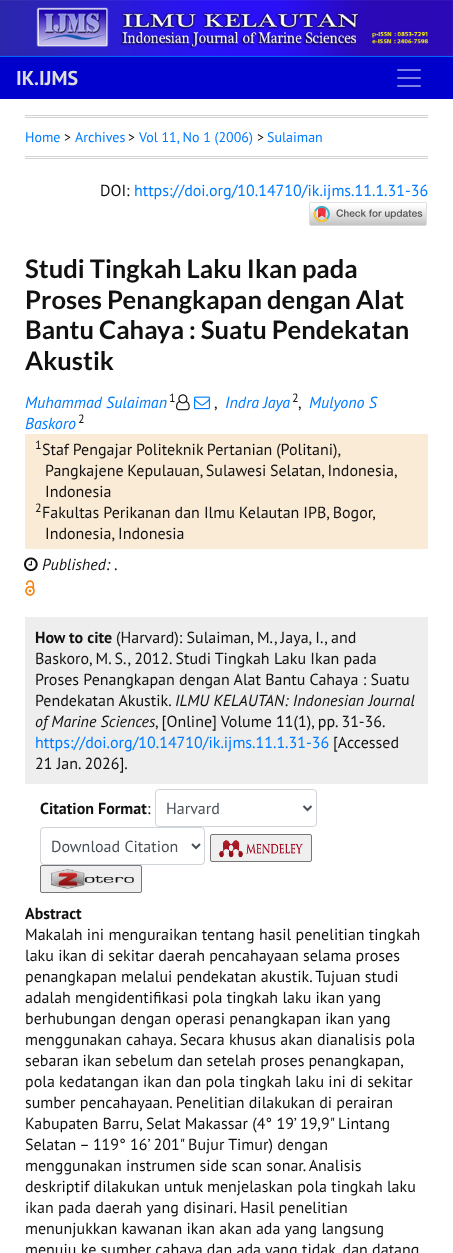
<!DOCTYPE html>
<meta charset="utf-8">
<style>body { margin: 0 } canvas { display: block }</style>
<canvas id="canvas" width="453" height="1253"></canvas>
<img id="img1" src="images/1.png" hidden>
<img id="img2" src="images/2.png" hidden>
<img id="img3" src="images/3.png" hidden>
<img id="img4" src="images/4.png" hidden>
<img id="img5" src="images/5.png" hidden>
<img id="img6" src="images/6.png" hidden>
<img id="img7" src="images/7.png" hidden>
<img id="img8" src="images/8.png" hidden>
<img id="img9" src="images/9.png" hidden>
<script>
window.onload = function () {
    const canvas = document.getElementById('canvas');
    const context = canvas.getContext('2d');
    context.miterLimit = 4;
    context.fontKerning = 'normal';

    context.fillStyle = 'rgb(255, 255, 255)';
    context.fillRect(0, 0, 453, 1253);
    context.fillStyle = 'rgb(0, 102, 255)';
    context.fillRect(0, 56, 453, 1);
    context.drawImage(document.getElementById('img1'), 0, 0, 453, 56);
    context.fillStyle = 'rgb(0, 0, 204)';
    context.fillRect(0, 57, 453, 42);
    context.drawImage(document.getElementById('img2'), 397, 69, 24, 18);
    context.fillStyle = 'rgb(209, 211, 213)';
    context.fillRect(25, 115, 403, 1);
    context.fillRect(25, 117, 403, 1);
    context.fillRect(25, 156, 403, 1);
    context.fillRect(25, 158, 403, 1);
    context.drawImage(document.getElementById('img3'), 309, 202, 118, 24);
    context.drawImage(document.getElementById('img4'), 176, 394, 14, 17);
    context.drawImage(document.getElementById('img5'), 194, 396, 16, 14);
    context.fillStyle = 'rgb(250, 235, 215)';
    context.fillRect(25, 434, 403, 115);
    context.drawImage(document.getElementById('img6'), 24, 557, 14, 15);
    context.drawImage(document.getElementById('img7'), 25, 580, 10, 16);
    context.fillStyle = 'rgb(238, 238, 238)';
    context.fillRect(25, 617, 403, 167);
    context.beginPath();
    context.roundRect(155.5, 789.5, 161, 37, 3.5);
    context.strokeStyle = 'rgb(206, 212, 218)';
    context.stroke();
    context.beginPath();
    context.moveTo(303.5, 806);
    context.lineTo(307.5, 810);
    context.lineTo(311.5, 806);
    context.strokeStyle = 'rgb(73, 80, 87)';
    context.lineWidth = 2;
    context.stroke();
    context.beginPath();
    context.roundRect(40.5, 827.5, 164, 37, 3.5);
    context.strokeStyle = 'rgb(206, 212, 218)';
    context.lineWidth = 1;
    context.stroke();
    context.beginPath();
    context.moveTo(192, 844);
    context.lineTo(196, 848);
    context.lineTo(200, 844);
    context.strokeStyle = 'rgb(73, 80, 87)';
    context.lineWidth = 2;
    context.stroke();
    context.fillStyle = 'rgb(239, 239, 239)';
    context.beginPath();
    context.roundRect(210.5, 834.5, 101, 27, 1.5);
    context.fill();
    context.strokeStyle = 'rgb(118, 118, 118)';
    context.lineWidth = 1;
    context.stroke();
    context.drawImage(document.getElementById('img8'), 219, 840, 84, 18);
    context.beginPath();
    context.roundRect(40.5, 865.5, 101, 27, 1.5);
    context.fill();
    context.stroke();
    context.drawImage(document.getElementById('img9'), 48, 869, 86, 21);
    context.font = 'bold 20px PT Sans';
    context.fillStyle = 'rgb(221, 221, 221)';
    context.fillText('IK.IJMS', 16, 85);
    context.font = '14px PT Sans';
    context.fillStyle = 'rgb(0, 123, 255)';
    context.fillText('Home', 25, 142);
    context.fillStyle = 'rgb(17, 17, 17)';
    context.fillText('>', 64, 142);
    context.fillStyle = 'rgb(0, 123, 255)';
    context.fillText('Archives', 75, 142);
    context.fillStyle = 'rgb(17, 17, 17)';
    context.fillText('>', 128, 142);
    context.fillStyle = 'rgb(0, 123, 255)';
    context.fillText('Vol 11, No 1 (2006)', 139, 142);
    context.fillStyle = 'rgb(17, 17, 17)';
    context.fillText('>', 257, 142);
    context.fillStyle = 'rgb(0, 123, 255)';
    context.fillText('Sulaiman', 267, 142);
    context.font = '16px PT Sans';
    context.fillStyle = 'rgb(17, 17, 17)';
    context.fillText('DOI:', 100, 196);
    context.fillStyle = 'rgb(0, 123, 255)';
    context.fillText('https://doi.org/10.14710/ik.ijms.11.1.31-36', 134, 196);
    context.font = 'bold 25.6px Lato';
    context.fillStyle = 'rgb(17, 17, 17)';
    context.fillText('Studi Tingkah Laku Ikan pada', 25, 278);
    context.fillText('Proses Penangkapan dengan Alat', 25, 309);
    context.fillText('Bantu Cahaya : Suatu Pendekatan', 25, 339);
    context.fillText('Akustik', 25, 370);
    context.font = 'italic 16px PT Sans';
    context.fillStyle = 'rgb(0, 123, 255)';
    context.fillText('Muhammad Sulaiman', 25, 408);
    context.font = '12px PT Sans';
    context.fillStyle = 'rgb(17, 17, 17)';
    context.fillText('1', 169, 402);
    context.font = '16px PT Sans';
    context.fillText(',', 214, 408);
    context.font = 'italic 16px PT Sans';
    context.fillStyle = 'rgb(0, 123, 255)';
    context.fillText('Indra Jaya', 225, 408);
    context.font = '12px PT Sans';
    context.fillStyle = 'rgb(17, 17, 17)';
    context.fillText('2', 292, 402);
    context.font = '16px PT Sans';
    context.fillText(',', 298, 408);
    context.font = 'italic 16px PT Sans';
    context.fillStyle = 'rgb(0, 123, 255)';
    context.fillText('Mulyono S', 309, 408);
    context.fillText('Baskoro', 25, 429);
    context.font = '12px PT Sans';
    context.fillStyle = 'rgb(17, 17, 17)';
    context.fillText('2', 78, 423);
    context.fillText('1', 35, 449);
    context.wordSpacing = '-0.5px';
    context.font = '16px PT Sans';
    context.fillText('Staf Pengajar Politeknik Pertanian (Politani),', 42, 455);
    context.fillText('Pangkajene Kepulauan, Sulawesi Selatan, Indonesia,', 45, 476);
    context.wordSpacing = '0px';
    context.fillText('Indonesia', 45, 497);
    context.font = '12px PT Sans';
    context.fillText('2', 35, 512);
    context.wordSpacing = '-0.25px';
    context.font = '16px PT Sans';
    context.fillText('Fakultas Perikanan dan Ilmu Kelautan IPB, Bogor,', 42, 518);
    context.wordSpacing = '0px';
    context.fillText('Indonesia, Indonesia', 45, 539);
    context.font = 'italic 16px PT Sans';
    context.fillText('Published: .', 42, 570);
    context.font = 'bold 16px PT Sans';
    context.fillText('How to cite', 35, 643);
    context.font = '16px PT Sans';
    context.fillText('(Harvard): Sulaiman, M., Jaya, I., and', 116, 643);
    context.fillText('Baskoro, M. S., 2012. Studi Tingkah Laku Ikan pada', 35, 664);
    context.fillText('Proses Penangkapan dengan Alat Bantu Cahaya : Suatu', 35, 685);
    context.fillText('Pendekatan Akustik.', 35, 706);
    context.font = 'italic 16px PT Sans';
    context.fillText('ILMU KELAUTAN: Indonesian Journal', 175, 706);
    context.fillText('of Marine Sciences', 35, 727);
    context.font = '16px PT Sans';
    context.fillText(', [Online] Volume 11(1), pp. 31-36.', 155, 727);
    context.fillStyle = 'rgb(0, 123, 255)';
    context.fillText('https://doi.org/10.14710/ik.ijms.11.1.31-36', 35, 748);
    context.fillStyle = 'rgb(17, 17, 17)';
    context.fillText('[Accessed', 333, 748);
    context.fillText('21 Jan. 2026].', 35, 769);
    context.font = 'bold 16px PT Sans';
    context.fillText('Citation Format', 40, 814);
    context.font = '16px PT Sans';
    context.fillText(':', 147, 814);
    context.fillStyle = 'rgb(73, 80, 87)';
    context.fillText('Harvard', 166, 814);
    context.fillText('Download Citation', 51, 852);
    context.font = 'bold 16px PT Sans';
    context.fillStyle = 'rgb(17, 17, 17)';
    context.fillText('Abstract', 25, 919);
    context.font = '16px PT Sans';
    context.fillText('Makalah ini menguraikan tentang hasil penelitian tingkah', 25, 940);
    context.fillText('laku ikan di sekitar daerah pencahayaan selama proses', 25, 961);
    context.fillText('penangkapan melalui pendekatan akustik. Tujuan studi', 25, 982);
    context.fillText('adalah mengidentifikasi pola tingkah laku ikan yang', 25, 1003);
    context.fillText('berhubungan dengan operasi penangkapan ikan yang', 25, 1024);
    context.fillText('menggunakan cahaya. Secara khusus akan dianalisis pola', 25, 1045);
    context.wordSpacing = '-0.25px';
    context.fillText('sebaran ikan sebelum dan setelah proses penangkapan,', 25, 1066);
    context.wordSpacing = '0px';
    context.fillText('pola kedatangan ikan dan pola tingkah laku ini di sekitar', 25, 1087);
    context.fillText('sumber pencahayaan. Penelitian dilakukan di perairan', 25, 1108);
    context.fillText('Kabupaten Barru, Selat Makassar (4° 19’ 19,9" Lintang', 25, 1129);
    context.fillText('Selatan – 119° 16’ 201" Bujur Timur) dengan', 25, 1150);
    context.fillText('menggunakan instrumen side scan sonar. Analisis', 25, 1171);
    context.fillText('deskriptif dilakukan untuk menjelaskan pola tingkah laku', 25, 1192);
    context.fillText('ikan pada daerah yang disinari. Hasil penelitian', 25, 1213);
    context.fillText('menunjukkan kawanan ikan akan ada yang langsung', 25, 1234);
    context.fillText('menuju ke sumber cahaya dan ada yang tidak, dan datang', 25, 1255);
};
</script>
